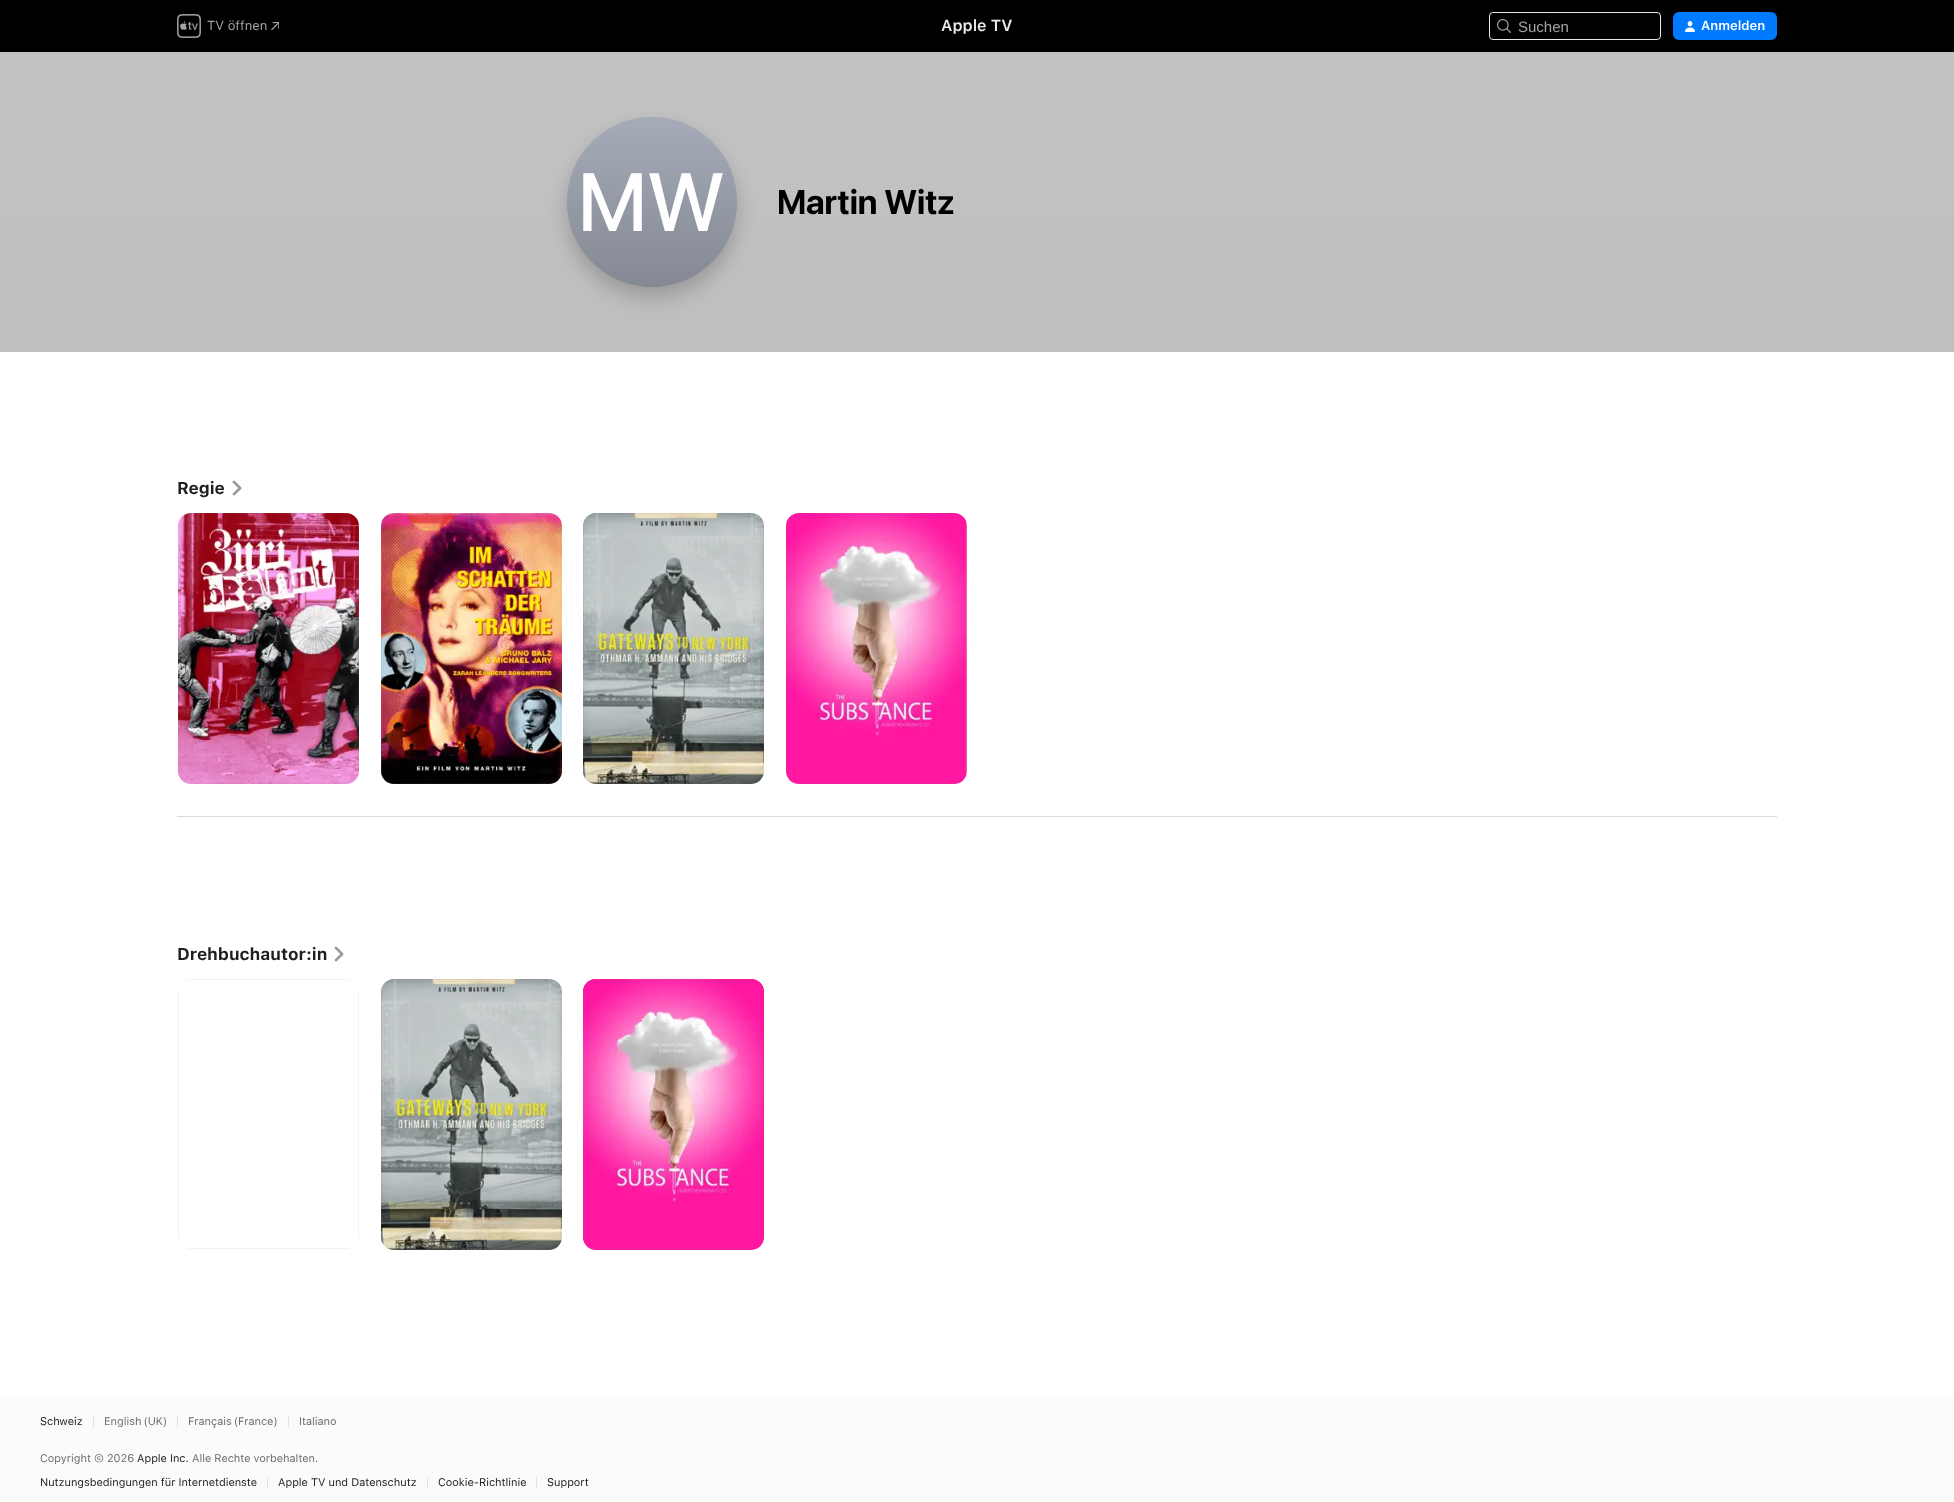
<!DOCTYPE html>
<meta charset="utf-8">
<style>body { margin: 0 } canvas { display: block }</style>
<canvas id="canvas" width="1954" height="1502"></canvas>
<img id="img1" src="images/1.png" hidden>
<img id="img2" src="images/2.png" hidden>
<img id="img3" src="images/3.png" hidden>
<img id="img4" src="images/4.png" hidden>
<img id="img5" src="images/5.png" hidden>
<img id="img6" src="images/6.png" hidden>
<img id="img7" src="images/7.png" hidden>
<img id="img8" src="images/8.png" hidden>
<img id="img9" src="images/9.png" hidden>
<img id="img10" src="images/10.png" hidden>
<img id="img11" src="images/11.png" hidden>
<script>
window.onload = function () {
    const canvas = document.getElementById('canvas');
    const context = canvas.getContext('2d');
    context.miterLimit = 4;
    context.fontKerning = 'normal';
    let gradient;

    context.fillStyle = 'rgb(255, 255, 255)';
    context.fillRect(0, 0, 1954, 1502);
    context.fillStyle = 'rgb(0, 0, 0)';
    context.fillRect(0, 0, 1954, 52);
    context.drawImage(document.getElementById('img1'), 177, 14, 24, 24);
    context.drawImage(document.getElementById('img2'), 271, 22, 8, 8);
    context.beginPath();
    context.roundRect(1489.5, 12.5, 171, 27, 3.5);
    context.strokeStyle = 'rgb(235, 235, 235)';
    context.stroke();
    context.drawImage(document.getElementById('img3'), 1497, 19, 14, 14);
    context.fillStyle = 'rgb(0, 122, 255)';
    context.beginPath();
    context.roundRect(1673, 12, 104, 28, 6);
    context.fill();
    context.drawImage(document.getElementById('img4'), 1685, 21, 10, 11);
    context.fillStyle = 'rgb(194, 194, 194)';
    context.fillRect(0, 52, 1954, 110);
    gradient = context.createLinearGradient(977, 162, 977, 352);
    gradient.addColorStop(0, 'rgb(194, 194, 194)');
    gradient.addColorStop(0.7, 'rgb(191, 191, 191)');
    context.fillStyle = gradient;
    context.fillRect(0, 162, 1954, 190);
    context.fillStyle = 'rgba(0, 0, 0, 0.2)';
    context.filter = 'blur(10px)';
    context.beginPath();
    context.roundRect(567, 127, 170, 170, 85);
    context.fill();
    context.filter = 'none';
    context.beginPath();
    context.arc(652, 202, 84.5, 0, 2 * Math.PI);
    context.strokeStyle = 'rgba(0, 0, 0, 0.08)';
    context.stroke();
    gradient = context.createLinearGradient(652, 117, 652, 287);
    gradient.addColorStop(0, 'rgb(165, 171, 184)');
    gradient.addColorStop(1, 'rgb(132, 137, 147)');
    context.fillStyle = gradient;
    context.beginPath();
    context.arc(652, 202, 85, 0, 2 * Math.PI);
    context.fill();
    context.drawImage(document.getElementById('img5'), 232, 480, 10, 16);
    context.drawImage(document.getElementById('img6'), 178, 513, 181, 271);
    context.fillStyle = 'rgba(128, 128, 128, 0.1)';
    context.beginPath();
    context.moveTo(178, 526);
    context.lineTo(178, 771);
    context.lineTo(179, 776);
    context.lineTo(179, 521);
    context.closePath();
    context.moveTo(191, 513);
    context.lineTo(186, 514);
    context.lineTo(351, 514);
    context.lineTo(346, 513);
    context.closePath();
    context.moveTo(359, 526);
    context.lineTo(358, 521);
    context.lineTo(358, 776);
    context.lineTo(359, 771);
    context.closePath();
    context.moveTo(346, 784);
    context.lineTo(351, 783);
    context.lineTo(186, 783);
    context.lineTo(191, 784);
    context.closePath();
    context.fill('evenodd');
    context.drawImage(document.getElementById('img7'), 381, 513, 181, 271);
    context.beginPath();
    context.moveTo(381, 526);
    context.lineTo(381, 771);
    context.lineTo(382, 776);
    context.lineTo(382, 521);
    context.closePath();
    context.moveTo(394, 513);
    context.lineTo(389, 514);
    context.lineTo(553, 514);
    context.lineTo(548, 513);
    context.closePath();
    context.moveTo(561, 526);
    context.lineTo(560, 521);
    context.lineTo(560, 776);
    context.lineTo(561, 771);
    context.closePath();
    context.moveTo(548, 784);
    context.lineTo(553, 783);
    context.lineTo(389, 783);
    context.lineTo(394, 784);
    context.closePath();
    context.fill('evenodd');
    context.drawImage(document.getElementById('img8'), 583, 513, 181, 271);
    context.beginPath();
    context.moveTo(583, 526);
    context.lineTo(583, 771);
    context.lineTo(584, 776);
    context.lineTo(584, 521);
    context.closePath();
    context.moveTo(596, 513);
    context.lineTo(591, 514);
    context.lineTo(756, 514);
    context.lineTo(751, 513);
    context.closePath();
    context.moveTo(764, 526);
    context.lineTo(763, 521);
    context.lineTo(763, 776);
    context.lineTo(764, 771);
    context.closePath();
    context.moveTo(751, 784);
    context.lineTo(756, 783);
    context.lineTo(591, 783);
    context.lineTo(596, 784);
    context.closePath();
    context.fill('evenodd');
    context.drawImage(document.getElementById('img9'), 786, 513, 181, 271);
    context.beginPath();
    context.moveTo(786, 526);
    context.lineTo(786, 771);
    context.lineTo(787, 776);
    context.lineTo(787, 521);
    context.closePath();
    context.moveTo(799, 513);
    context.lineTo(794, 514);
    context.lineTo(958, 514);
    context.lineTo(953, 513);
    context.closePath();
    context.moveTo(966, 526);
    context.lineTo(965, 521);
    context.lineTo(965, 776);
    context.lineTo(966, 771);
    context.closePath();
    context.moveTo(953, 784);
    context.lineTo(958, 783);
    context.lineTo(794, 783);
    context.lineTo(799, 784);
    context.closePath();
    context.fill('evenodd');
    context.fillStyle = 'rgb(217, 217, 217)';
    context.fillRect(177, 816, 1600, 1);
    context.drawImage(document.getElementById('img5'), 334, 946, 10, 16);
    context.fillStyle = 'rgb(242, 242, 242)';
    context.beginPath();
    context.moveTo(178, 992);
    context.lineTo(178, 1236);
    context.lineTo(179, 1241);
    context.lineTo(179, 987);
    context.closePath();
    context.moveTo(191, 979);
    context.lineTo(186, 980);
    context.lineTo(351, 980);
    context.lineTo(346, 979);
    context.closePath();
    context.moveTo(359, 992);
    context.lineTo(358, 987);
    context.lineTo(358, 1241);
    context.lineTo(359, 1236);
    context.closePath();
    context.moveTo(346, 1249);
    context.lineTo(351, 1248);
    context.lineTo(186, 1248);
    context.lineTo(191, 1249);
    context.closePath();
    context.fill('evenodd');
    context.drawImage(document.getElementById('img10'), 381, 979, 181, 271);
    context.fillStyle = 'rgba(128, 128, 128, 0.1)';
    context.beginPath();
    context.moveTo(381, 992);
    context.lineTo(381, 1237);
    context.lineTo(382, 1242);
    context.lineTo(382, 987);
    context.closePath();
    context.moveTo(394, 979);
    context.lineTo(389, 980);
    context.lineTo(553, 980);
    context.lineTo(548, 979);
    context.closePath();
    context.moveTo(561, 992);
    context.lineTo(560, 987);
    context.lineTo(560, 1242);
    context.lineTo(561, 1237);
    context.closePath();
    context.moveTo(548, 1250);
    context.lineTo(553, 1249);
    context.lineTo(389, 1249);
    context.lineTo(394, 1250);
    context.closePath();
    context.fill('evenodd');
    context.fillStyle = 'rgb(204, 0, 122)';
    context.beginPath();
    context.roundRect(583, 979, 181, 270, 13);
    context.fill();
    context.drawImage(document.getElementById('img11'), 583, 979, 181, 271);
    context.fillStyle = 'rgba(128, 128, 128, 0.1)';
    context.beginPath();
    context.moveTo(583, 992);
    context.lineTo(583, 1236);
    context.lineTo(584, 1241);
    context.lineTo(584, 987);
    context.closePath();
    context.moveTo(596, 979);
    context.lineTo(591, 980);
    context.lineTo(756, 980);
    context.lineTo(751, 979);
    context.closePath();
    context.moveTo(764, 992);
    context.lineTo(763, 987);
    context.lineTo(763, 1241);
    context.lineTo(764, 1236);
    context.closePath();
    context.moveTo(751, 1249);
    context.lineTo(756, 1248);
    context.lineTo(591, 1248);
    context.lineTo(596, 1249);
    context.closePath();
    context.fill('evenodd');
    context.fillStyle = 'rgb(251, 251, 251)';
    context.fillRect(0, 1396, 1954, 106);
    context.fillStyle = 'rgb(226, 226, 226)';
    context.fillRect(93, 1416, 1, 11);
    context.fillRect(177, 1416, 1, 11);
    context.fillRect(288, 1416, 1, 11);
    context.fillRect(267, 1477, 1, 11);
    context.fillRect(427, 1477, 1, 11);
    context.fillRect(536, 1477, 1, 11);
    context.font = '13px SF';
    context.fillStyle = 'rgb(163, 163, 163)';
    context.fillText('TV öffnen', 207, 30);
    context.font = '600 16px SF';
    context.fillStyle = 'rgb(235, 235, 235)';
    context.fillText('Apple TV', 941, 31);
    context.font = '15px Liberation Sans';
    context.fillStyle = 'rgb(163, 163, 163)';
    context.fillText('Suchen', 1518, 32);
    context.font = '600 13px SF';
    context.fillStyle = 'rgb(255, 255, 255)';
    context.fillText('Anmelden', 1701, 30);
    context.letterSpacing = '0.5px';
    context.font = '500 82px SF';
    context.fillText('M‌W', 578, 231);
    context.letterSpacing = '0px';
    context.font = 'bold 34px "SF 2"';
    context.fillStyle = 'rgb(0, 0, 0)';
    context.fillText('Martin Witz', 777, 214);
    context.font = 'bold 17px SF';
    context.fillStyle = 'rgb(30, 30, 30)';
    context.fillText('Regie', 177, 494);
    context.fillText('Drehbuchautor:in', 177, 960);
    context.font = '11px SF';
    context.fillText('Schweiz', 40, 1425);
    context.wordSpacing = '-1px';
    context.fillStyle = 'rgb(110, 110, 110)';
    context.fillText('English (UK)', 104, 1425);
    context.fillText('Français (France)', 188, 1425);
    context.wordSpacing = '0px';
    context.fillText('Italiano', 299, 1425);
    context.fillText('Copyright © 2026', 40, 1462);
    context.fillStyle = 'rgb(30, 30, 30)';
    context.fillText('Apple Inc.', 137, 1462);
    context.fillStyle = 'rgb(110, 110, 110)';
    context.fillText('Alle Rechte vorbehalten.', 192, 1462);
    context.fillStyle = 'rgb(30, 30, 30)';
    context.fillText('Nutzungsbedingungen für Internetdienste', 40, 1486);
    context.fillText('Apple TV und Datenschutz', 278, 1486);
    context.fillText('Cookie-Richtlinie', 438, 1486);
    context.fillText('Support', 547, 1486);
};
</script>
